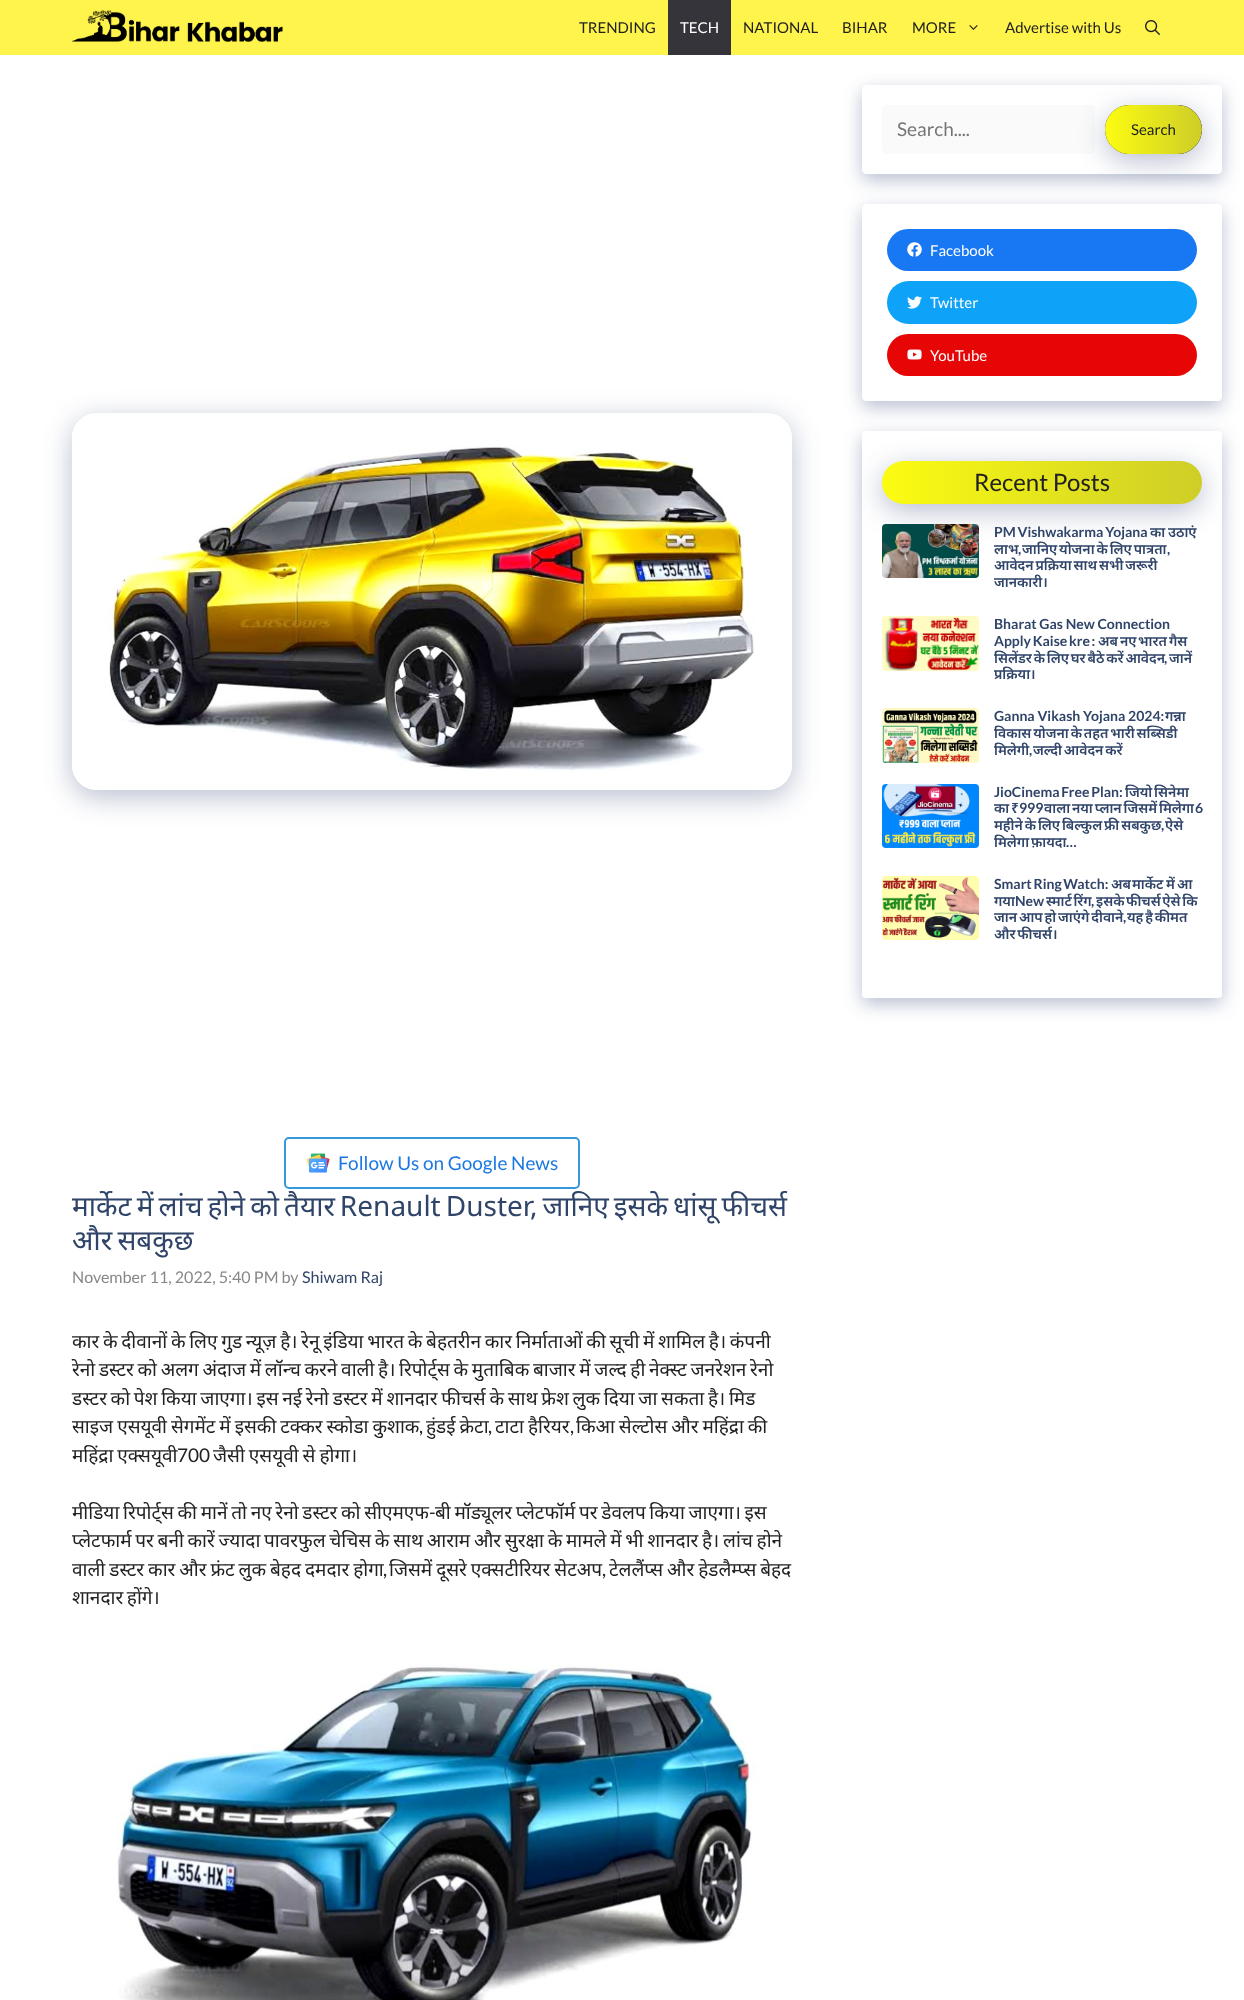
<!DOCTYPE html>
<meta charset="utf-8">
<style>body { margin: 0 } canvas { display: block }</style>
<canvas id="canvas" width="1244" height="2000"></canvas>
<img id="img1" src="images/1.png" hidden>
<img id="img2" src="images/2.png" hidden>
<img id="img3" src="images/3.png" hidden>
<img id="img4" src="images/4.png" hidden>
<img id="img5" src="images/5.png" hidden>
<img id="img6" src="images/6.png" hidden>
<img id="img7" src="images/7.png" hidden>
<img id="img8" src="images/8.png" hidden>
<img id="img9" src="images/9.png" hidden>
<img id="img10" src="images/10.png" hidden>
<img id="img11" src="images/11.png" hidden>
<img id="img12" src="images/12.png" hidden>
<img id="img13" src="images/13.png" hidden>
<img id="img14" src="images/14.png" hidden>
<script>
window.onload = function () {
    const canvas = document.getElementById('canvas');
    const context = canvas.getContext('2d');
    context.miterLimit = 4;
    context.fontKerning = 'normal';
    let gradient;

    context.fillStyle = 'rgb(255, 255, 255)';
    context.fillRect(0, 0, 1244, 2000);
    context.fillStyle = 'rgb(255, 244, 75)';
    context.fillRect(0, 0, 1244, 55);
    context.drawImage(document.getElementById('img1'), 72, 10, 211, 32);
    context.fillStyle = 'rgb(53, 52, 58)';
    context.fillRect(668, 0, 63, 55);
    context.drawImage(document.getElementById('img2'), 969, 25, 9, 5);
    context.drawImage(document.getElementById('img3'), 1145, 20, 15, 15);
    context.save();
    context.beginPath();
    context.moveTo(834, 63);
    context.lineTo(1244, 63);
    context.lineTo(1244, 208);
    context.lineTo(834, 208);
    context.closePath();
    context.moveTo(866, 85);
    context.lineTo(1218, 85);
    context.bezierCurveTo(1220, 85, 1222, 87, 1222, 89);
    context.lineTo(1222, 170);
    context.bezierCurveTo(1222, 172, 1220, 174, 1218, 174);
    context.lineTo(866, 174);
    context.bezierCurveTo(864, 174, 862, 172, 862, 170);
    context.lineTo(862, 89);
    context.bezierCurveTo(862, 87, 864, 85, 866, 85);
    context.closePath();
    context.clip('evenodd');
    context.fillStyle = 'rgba(23, 43, 99, 0.3)';
    context.filter = 'blur(9px)';
    context.beginPath();
    context.roundRect(862, 91, 360, 89, 4);
    context.fill();
    context.filter = 'none';
    context.restore();
    context.fillStyle = 'rgb(250, 250, 250)';
    context.beginPath();
    context.roundRect(882, 105, 213, 49, 5);
    context.fill();
    context.fillStyle = 'rgba(23, 43, 99, 0.3)';
    context.filter = 'blur(14px)';
    context.beginPath();
    context.roundRect(1105, 112, 97, 49, 24.5);
    context.fill();
    context.filter = 'none';
    context.fillStyle = 'rgb(36, 34, 38)';
    context.beginPath();
    context.roundRect(1105, 105, 97, 49, 24.5);
    context.fill();
    context.save();
    context.beginPath();
    context.roundRect(1105, 105, 97, 49, 24.5);
    context.clip();
    gradient = context.createLinearGradient(916, 130, 1106, 130);
    gradient.addColorStop(0, 'rgb(252, 252, 18)');
    gradient.addColorStop(0.55, 'rgb(201, 201, 42)');
    gradient.addColorStop(1, 'rgb(255, 244, 75)');
    context.fillStyle = gradient;
    context.fillRect(1105, 122, 1, 15);
    gradient = context.createLinearGradient(1106, 130, 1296, 130);
    gradient.addColorStop(0, 'rgb(252, 252, 18)');
    gradient.addColorStop(0.55, 'rgb(201, 201, 42)');
    gradient.addColorStop(1, 'rgb(255, 244, 75)');
    context.fillStyle = gradient;
    context.beginPath();
    context.roundRect(1106, 105, 96, 49, [0, 24.5, 24.5, 0]);
    context.fill();
    context.restore();
    context.save();
    context.beginPath();
    context.moveTo(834, 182);
    context.lineTo(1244, 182);
    context.lineTo(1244, 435);
    context.lineTo(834, 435);
    context.closePath();
    context.moveTo(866, 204);
    context.lineTo(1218, 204);
    context.bezierCurveTo(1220, 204, 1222, 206, 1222, 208);
    context.lineTo(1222, 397);
    context.bezierCurveTo(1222, 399, 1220, 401, 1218, 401);
    context.lineTo(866, 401);
    context.bezierCurveTo(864, 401, 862, 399, 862, 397);
    context.lineTo(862, 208);
    context.bezierCurveTo(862, 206, 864, 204, 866, 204);
    context.closePath();
    context.clip('evenodd');
    context.fillStyle = 'rgba(23, 43, 99, 0.3)';
    context.filter = 'blur(9px)';
    context.beginPath();
    context.roundRect(862, 210, 360, 197, 4);
    context.fill();
    context.filter = 'none';
    context.restore();
    context.fillStyle = 'rgb(24, 119, 242)';
    context.beginPath();
    context.roundRect(887, 229, 310, 42, 21);
    context.fill();
    context.drawImage(document.getElementById('img4'), 907, 242, 15, 15);
    context.fillStyle = 'rgb(14, 162, 248)';
    context.beginPath();
    context.roundRect(887, 281, 310, 43, 21.5);
    context.fill();
    context.drawImage(document.getElementById('img5'), 907, 296, 15, 13);
    context.fillStyle = 'rgb(230, 6, 6)';
    context.beginPath();
    context.roundRect(887, 334, 310, 42, 21);
    context.fill();
    context.drawImage(document.getElementById('img6'), 907, 349, 15, 11);
    context.fillStyle = 'rgba(23, 43, 99, 0.3)';
    context.filter = 'blur(9px)';
    context.beginPath();
    context.roundRect(862, 437, 360, 567, 4);
    context.fill();
    context.filter = 'none';
    context.fillStyle = 'rgb(255, 255, 255)';
    context.beginPath();
    context.roundRect(862, 431, 360, 567, 4);
    context.fill();
    context.fillStyle = 'rgba(23, 43, 99, 0.3)';
    context.filter = 'blur(14px)';
    context.beginPath();
    context.roundRect(882, 468, 320, 43, 21.5);
    context.fill();
    context.filter = 'none';
    gradient = context.createLinearGradient(882, 483, 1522, 483);
    gradient.addColorStop(0, 'rgb(252, 252, 18)');
    gradient.addColorStop(0.55, 'rgb(201, 201, 42)');
    gradient.addColorStop(1, 'rgb(255, 244, 75)');
    context.fillStyle = gradient;
    context.beginPath();
    context.roundRect(882, 461, 320, 43, 21.5);
    context.fill();
    context.drawImage(document.getElementById('img7'), 882, 524, 97, 54);
    context.drawImage(document.getElementById('img8'), 882, 616, 97, 55);
    context.drawImage(document.getElementById('img9'), 882, 708, 97, 55);
    context.drawImage(document.getElementById('img10'), 882, 784, 97, 64);
    context.drawImage(document.getElementById('img11'), 882, 876, 97, 64);
    context.save();
    context.beginPath();
    context.moveTo(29, 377);
    context.lineTo(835, 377);
    context.lineTo(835, 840);
    context.lineTo(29, 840);
    context.closePath();
    context.moveTo(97, 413);
    context.lineTo(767, 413);
    context.bezierCurveTo(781, 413, 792, 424, 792, 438);
    context.lineTo(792, 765);
    context.bezierCurveTo(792, 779, 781, 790, 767, 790);
    context.lineTo(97, 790);
    context.bezierCurveTo(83, 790, 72, 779, 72, 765);
    context.lineTo(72, 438);
    context.bezierCurveTo(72, 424, 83, 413, 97, 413);
    context.closePath();
    context.clip('evenodd');
    context.fillStyle = 'rgba(23, 43, 99, 0.3)';
    context.filter = 'blur(14px)';
    context.beginPath();
    context.roundRect(72, 420, 720, 377, 25);
    context.fill();
    context.filter = 'none';
    context.restore();
    context.drawImage(document.getElementById('img12'), 72, 422, 720, 368);
    context.beginPath();
    context.roundRect(285, 1138, 294, 50, 4);
    context.strokeStyle = 'rgb(52, 152, 219)';
    context.lineWidth = 2;
    context.stroke();
    context.drawImage(document.getElementById('img13'), 306, 1153, 24, 20);
    context.drawImage(document.getElementById('img14'), 117, 1663, 641, 337);
    context.font = '15px Lato';
    context.fillStyle = 'rgb(33, 33, 33)';
    context.fillText('TRENDING', 579, 33);
    context.fillStyle = 'rgb(255, 255, 255)';
    context.fillText('TECH', 680, 33);
    context.fillStyle = 'rgb(33, 33, 33)';
    context.fillText('NATIONAL', 743, 33);
    context.fillText('BIHAR', 842, 33);
    context.fillText('MORE', 912, 33);
    context.fillText('Advertise with Us', 1005, 33);
    context.font = '19px Lato';
    context.fillStyle = 'rgb(117, 117, 117)';
    context.fillText('Search....', 897, 136);
    context.font = '15px Lato';
    context.fillStyle = 'rgb(33, 33, 33)';
    context.fillText('Search', 1131, 135);
    context.fillStyle = 'rgb(255, 255, 255)';
    context.fillText('Facebook', 930, 256);
    context.fillText('Twitter', 930, 308);
    context.fillText('YouTube', 930, 361);
    context.font = '24px Lato';
    context.fillStyle = 'rgb(33, 33, 33)';
    context.fillText('Recent Posts', 974, 491);
    context.wordSpacing = '-1px';
    context.font = 'bold 14px Lato';
    context.fillStyle = 'rgb(47, 68, 104)';
    context.fillText('PM Vishwakarma Yojana', 994, 537);
    context.wordSpacing = '0px';
    context.font = '600 14px Noto Sans';
    context.fillText('का', 1150, 537);
    context.fillText('उठाएं', 1168, 537);
    context.fillText('लाभ', 994, 554);
    context.font = 'bold 14px Lato';
    context.fillText(',', 1018, 554);
    context.wordSpacing = '-1.75px';
    context.font = '600 14px Noto Sans';
    context.fillText('जानिए योजना के लिए पात्रता', 1022, 554);
    context.wordSpacing = '0px';
    context.font = 'bold 14px Lato';
    context.fillText(',', 1167, 554);
    context.wordSpacing = '-1.75px';
    context.font = '600 14px Noto Sans';
    context.fillText('आवेदन प्रक्रिया साथ सभी जरूरी', 994, 570);
    context.wordSpacing = '0px';
    context.fillText('जानकारी।', 994, 587);
    context.font = 'bold 14px Lato';
    context.fillText('Bharat Gas New Connection', 994, 629);
    context.wordSpacing = '-1px';
    context.fillText('Apply Kaise kre :', 994, 646);
    context.wordSpacing = '0px';
    context.font = '600 14px Noto Sans';
    context.fillText('अब', 1098, 646);
    context.fillText('नए', 1120, 646);
    context.fillText('भारत', 1138, 646);
    context.fillText('गैस', 1169, 646);
    context.wordSpacing = '-1.75px';
    context.fillText('सिलेंडर के लिए घर बैठे करें आवेदन', 994, 663);
    context.wordSpacing = '0px';
    context.font = 'bold 14px Lato';
    context.fillText(',', 1164, 663);
    context.font = '600 14px Noto Sans';
    context.fillText('जानें', 1169, 663);
    context.fillText('प्रक्रिया।', 994, 679);
    context.font = 'bold 14px Lato';
    context.fillText('Ganna Vikash Yojana 2024:', 994, 721);
    context.font = '600 14px Noto Sans';
    context.fillText('गन्ना', 1165, 721);
    context.wordSpacing = '-1.75px';
    context.fillText('विकास योजना के तहत भारी सब्सिडी', 994, 738);
    context.wordSpacing = '0px';
    context.fillText('मिलेगी', 994, 755);
    context.font = 'bold 14px Lato';
    context.fillText(',', 1029, 755);
    context.wordSpacing = '-1.75px';
    context.font = '600 14px Noto Sans';
    context.fillText('जल्दी आवेदन करें', 1033, 755);
    context.wordSpacing = '-1px';
    context.font = 'bold 14px Lato';
    context.fillText('JioCinema Free Plan:', 994, 797);
    context.wordSpacing = '0px';
    context.font = '600 14px Noto Sans';
    context.fillText('जियो', 1125, 797);
    context.fillText('सिनेमा', 1154, 797);
    context.wordSpacing = '-1.75px';
    context.fillText('का ₹', 994, 813);
    context.wordSpacing = '0px';
    context.font = 'bold 14px Lato';
    context.fillText('999', 1019, 813);
    context.wordSpacing = '-1.75px';
    context.font = '600 14px Noto Sans';
    context.fillText('वाला नया प्लान जिसमें मिलेगा', 1044, 813);
    context.wordSpacing = '0px';
    context.font = 'bold 14px Lato';
    context.fillText('6', 1195, 813);
    context.wordSpacing = '-1.75px';
    context.font = '600 14px Noto Sans';
    context.fillText('महीने के लिए बिल्कुल फ्री सबकुछ', 994, 830);
    context.wordSpacing = '0px';
    context.font = 'bold 14px Lato';
    context.fillText(',', 1161, 830);
    context.font = '600 14px Noto Sans';
    context.fillText('ऐसे', 1165, 830);
    context.wordSpacing = '-1.75px';
    context.fillText('मिलेगा फ़ायदा', 994, 847);
    context.wordSpacing = '0px';
    context.font = 'bold 14px Lato';
    context.fillText('…', 1066, 847);
    context.wordSpacing = '-1px';
    context.fillText('Smart Ring Watch:', 994, 889);
    context.wordSpacing = '0px';
    context.font = '600 14px Noto Sans';
    context.fillText('अब', 1111, 889);
    context.fillText('मार्केट', 1132, 889);
    context.fillText('में', 1166, 889);
    context.fillText('आ', 1177, 889);
    context.fillText('गया', 994, 906);
    context.font = 'bold 14px Lato';
    context.fillText('New', 1015, 906);
    context.wordSpacing = '-2px';
    context.font = '600 14px Noto Sans';
    context.fillText('स्मार्ट रिंग', 1046, 906);
    context.wordSpacing = '0px';
    context.font = 'bold 14px Lato';
    context.fillText(',', 1091, 906);
    context.wordSpacing = '-2px';
    context.font = '600 14px Noto Sans';
    context.fillText('इसके फीचर्स ऐसे कि', 1096, 906);
    context.wordSpacing = '-1.75px';
    context.fillText('जान आप हो जाएंगे दीवाने', 994, 922);
    context.wordSpacing = '0px';
    context.font = 'bold 14px Lato';
    context.fillText(',', 1123, 922);
    context.wordSpacing = '-1.75px';
    context.font = '600 14px Noto Sans';
    context.fillText('यह है कीमत', 1127, 922);
    context.fillText('और फीचर्स।', 994, 939);
    context.wordSpacing = '0px';
    context.font = '19px Lato';
    context.fillStyle = 'rgb(27, 120, 226)';
    context.fillText('Follow Us on Google News', 338, 1170);
    context.wordSpacing = '-2.25px';
    context.font = '28px Noto Sans';
    context.fillStyle = 'rgb(47, 68, 104)';
    context.fillText('मार्केट में लांच होने को तैयार Renault Duster, जानिए इसके धांसू फीचर्स', 72, 1216);
    context.wordSpacing = '-2px';
    context.fillText('और सबकुछ', 72, 1250);
    context.wordSpacing = '0px';
    context.font = '16.1px Lato';
    context.fillStyle = 'rgb(135, 135, 135)';
    context.fillText('November 11, 2022, 5:40 PM by', 72, 1283);
    context.fillStyle = 'rgb(47, 68, 104)';
    context.fillText('Shiwam Raj', 302, 1283);
    context.wordSpacing = '-1.25px';
    context.font = '19px Noto Sans';
    context.fillStyle = 'rgb(33, 33, 33)';
    context.fillText('कार के दीवानों के लिए गुड न्यूज़ है। रेनू इंडिया भारत के बेहतरीन कार निर्माताओं की सूची में शामिल है। कंपनी', 72, 1348);
    context.fillText('रेनो डस्टर को अलग अंदाज में लॉन्च करने वाली है। रिपोर्ट्स के मुताबिक बाजार में जल्द ही नेक्स्ट जनरेशन रेनो', 72, 1376);
    context.fillText('डस्टर को पेश किया जाएगा। इस नई रेनो डस्टर में शानदार फीचर्स के साथ फ्रेश लुक दिया जा सकता है। मिड', 72, 1405);
    context.wordSpacing = '-1px';
    context.fillText('साइज एसयूवी सेगमेंट में इसकी टक्कर स्कोडा कुशाक', 72, 1433);
    context.wordSpacing = '0px';
    context.font = '19px Lato';
    context.fillText(',', 419, 1433);
    context.wordSpacing = '-1px';
    context.font = '19px Noto Sans';
    context.fillText('हुंडई क्रेटा', 426, 1433);
    context.wordSpacing = '0px';
    context.font = '19px Lato';
    context.fillText(',', 488, 1433);
    context.wordSpacing = '-1px';
    context.font = '19px Noto Sans';
    context.fillText('टाटा हैरियर', 495, 1433);
    context.wordSpacing = '0px';
    context.font = '19px Lato';
    context.fillText(',', 570, 1433);
    context.wordSpacing = '-1px';
    context.font = '19px Noto Sans';
    context.fillText('किआ सेल्टोस और महिंद्रा की', 576, 1433);
    context.fillText('महिंद्रा एक्सयूवी', 72, 1462);
    context.wordSpacing = '0px';
    context.font = '19px Lato';
    context.fillText('700', 177, 1462);
    context.wordSpacing = '-1px';
    context.font = '19px Noto Sans';
    context.fillText('जैसी एसयूवी से होगा।', 213, 1462);
    context.wordSpacing = '-1.25px';
    context.fillText('मीडिया रिपोर्ट्स की मानें तो नए रेनो डस्टर को सीएमएफ', 72, 1519);
    context.wordSpacing = '0px';
    context.font = '19px Lato';
    context.fillText('-', 429, 1519);
    context.wordSpacing = '-1.25px';
    context.font = '19px Noto Sans';
    context.fillText('बी मॉड्यूलर प्लेटफॉर्म पर डेवलप किया जाएगा। इस', 435, 1519);
    context.fillText('प्लेटफार्म पर बनी कारें ज्यादा पावरफुल चेचिस के साथ आराम और सुरक्षा के मामले में भी शानदार है। लांच होने', 72, 1547);
    context.wordSpacing = '-1px';
    context.fillText('वाली डस्टर कार और फ्रंट लुक बेहद दमदार होगा', 72, 1576);
    context.wordSpacing = '0px';
    context.font = '19px Lato';
    context.fillText(',', 383, 1576);
    context.wordSpacing = '-1px';
    context.font = '19px Noto Sans';
    context.fillText('जिसमें दूसरे एक्सटीरियर सेटअप', 389, 1576);
    context.wordSpacing = '0px';
    context.font = '19px Lato';
    context.fillText(',', 602, 1576);
    context.wordSpacing = '-1px';
    context.font = '19px Noto Sans';
    context.fillText('टेललैंप्स और हेडलैम्प्स बेहद', 609, 1576);
    context.wordSpacing = '-1.25px';
    context.fillText('शानदार होंगे।', 72, 1604);
};
</script>
